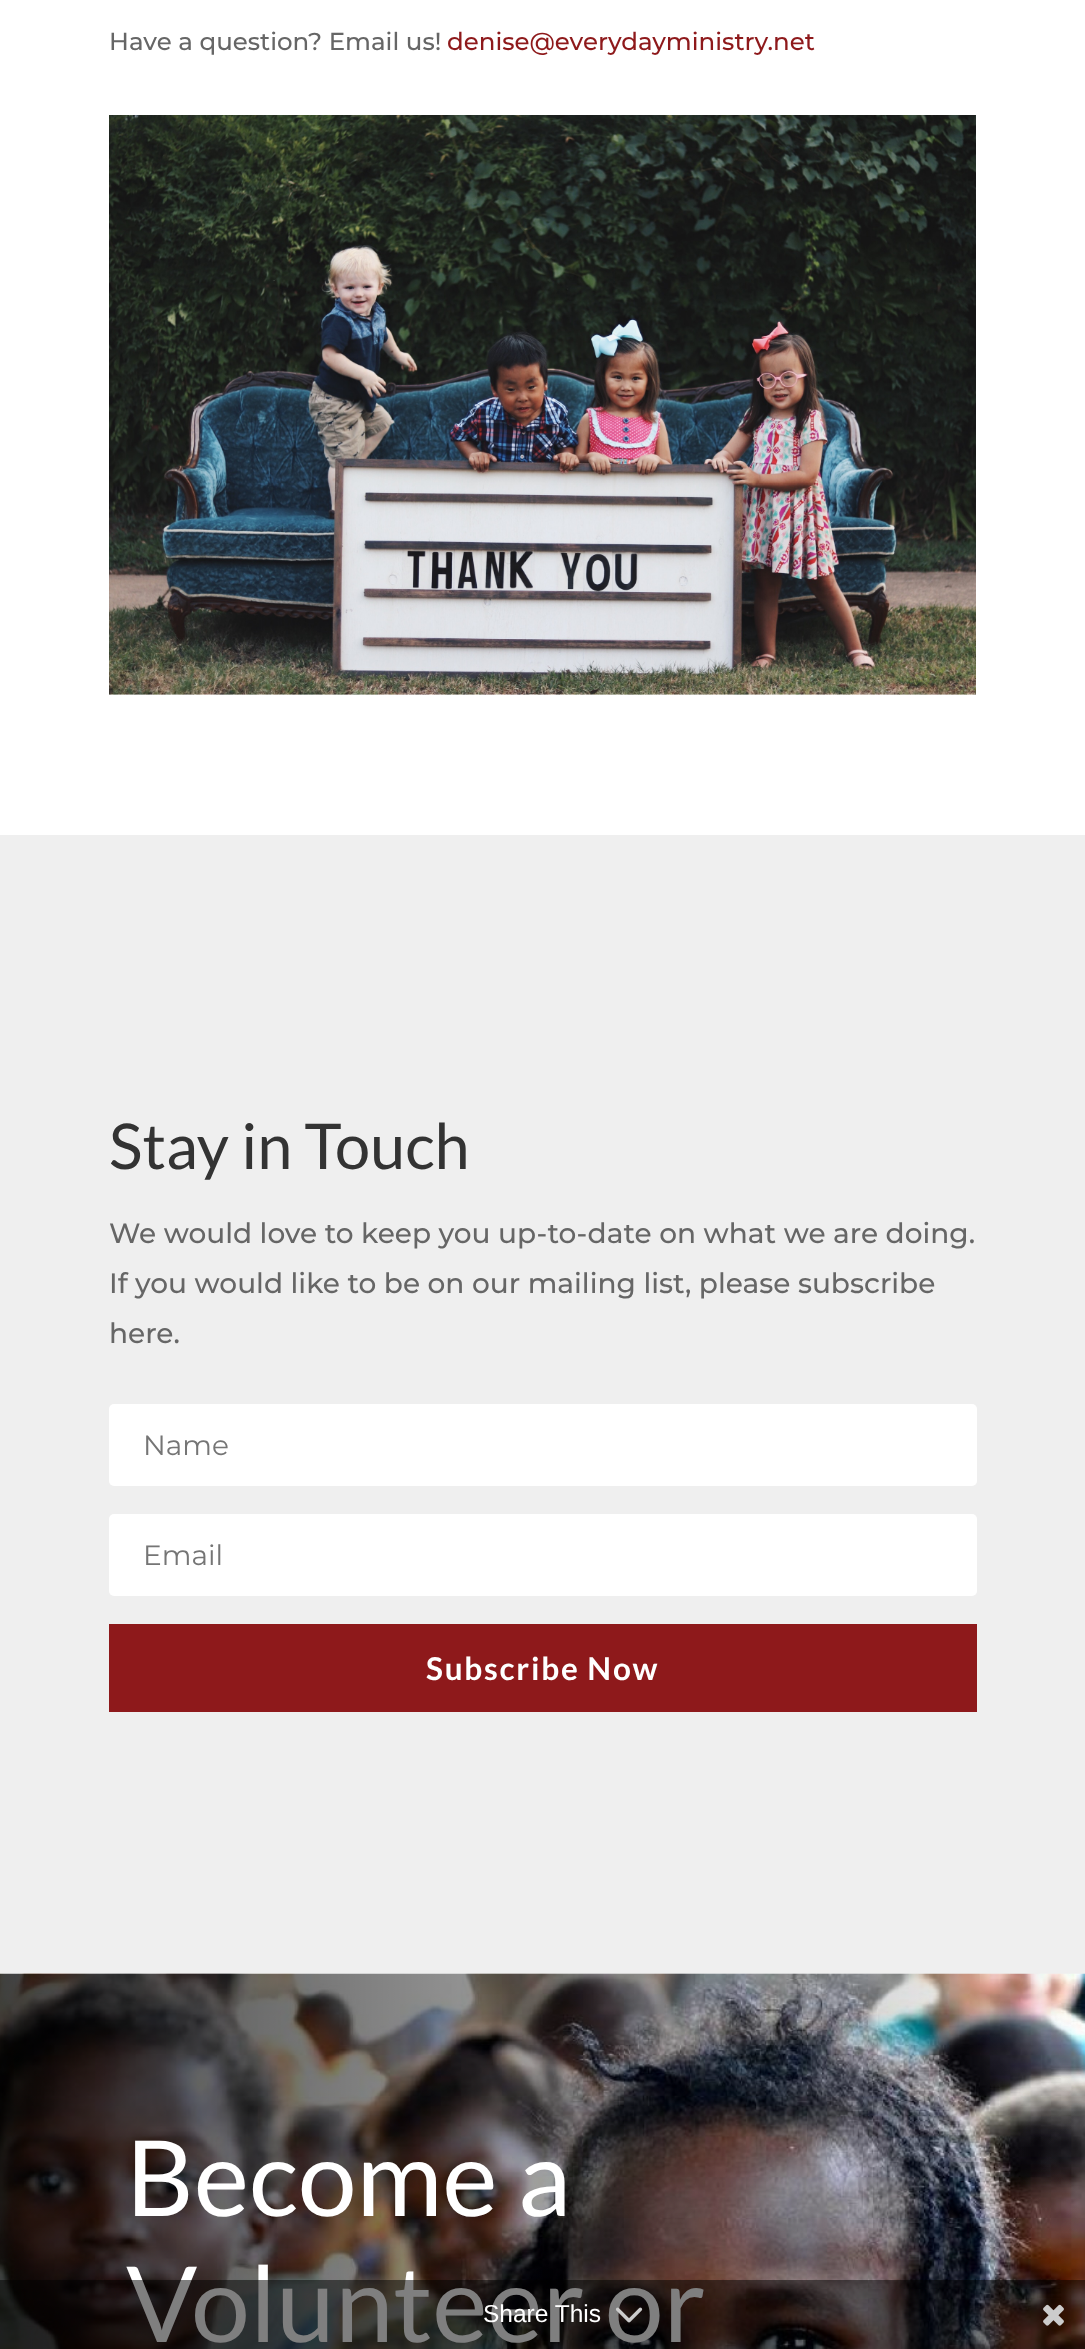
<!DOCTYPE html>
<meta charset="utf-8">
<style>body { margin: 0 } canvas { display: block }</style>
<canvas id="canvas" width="1085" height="2349"></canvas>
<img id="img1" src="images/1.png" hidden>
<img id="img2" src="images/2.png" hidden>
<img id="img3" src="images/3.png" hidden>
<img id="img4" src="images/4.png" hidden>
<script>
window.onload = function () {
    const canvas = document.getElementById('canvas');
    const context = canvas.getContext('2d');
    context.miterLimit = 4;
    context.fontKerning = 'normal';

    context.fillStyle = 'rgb(255, 255, 255)';
    context.fillRect(0, 0, 1085, 2349);
    context.drawImage(document.getElementById('img1'), 109, 115, 867, 580);
    context.fillStyle = 'rgb(239, 239, 239)';
    context.fillRect(0, 835, 1085, 1139);
    context.fillStyle = 'rgb(255, 255, 255)';
    context.beginPath();
    context.roundRect(109, 1404, 868, 82, 5);
    context.fill();
    context.beginPath();
    context.roundRect(109, 1514, 868, 82, 5);
    context.fill();
    context.fillStyle = 'rgb(142, 25, 27)';
    context.fillRect(109, 1624, 868, 88);
    context.drawImage(document.getElementById('img2'), 0, 1973, 1085, 376);
    context.font = '100 24.5px Montserrat';
    context.fillStyle = 'rgb(102, 102, 102)';
    context.fillText('Have a question? Email us!', 109, 50);
    context.fillStyle = 'rgb(142, 25, 27)';
    context.fillText('denise@everydayministry.net', 447, 50);
    context.font = '63px Lato';
    context.fillStyle = 'rgb(51, 51, 51)';
    context.fillText('Stay in Touch', 109, 1169);
    context.font = '100 28px Montserrat';
    context.fillStyle = 'rgb(102, 102, 102)';
    context.fillText('We would love to keep you up-to-date on what we are doing.', 109, 1243);
    context.fillText('If you would like to be on our mailing list, please subscribe', 109, 1293);
    context.fillText('here.', 109, 1343);
    context.font = '100 28px "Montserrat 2"';
    context.fillStyle = 'rgb(117, 117, 117)';
    context.fillText('Name', 143, 1455);
    context.fillText('Email', 143, 1565);
    context.letterSpacing = '1.75px';
    context.font = 'bold 31.5px Lato';
    context.fillStyle = 'rgb(255, 255, 255)';
    context.fillText('Subscribe Now', 426, 1680);
    context.letterSpacing = '0px';
    context.font = '105px Lato';
    context.fillText('Become a', 126, 2216);
    context.fillText('Volunteer or', 126, 2342);
    context.fillStyle = 'rgba(0, 0, 0, 0.5)';
    context.fillRect(0, 2280, 1085, 69);
    context.font = '24.5px Liberation Sans';
    context.fillStyle = 'rgb(255, 255, 255)';
    context.fillText('Share This', 483, 2322);
    context.drawImage(document.getElementById('img3'), 615, 2307, 28, 16);
    context.drawImage(document.getElementById('img4'), 1043, 2304, 21, 22);
};
</script>
